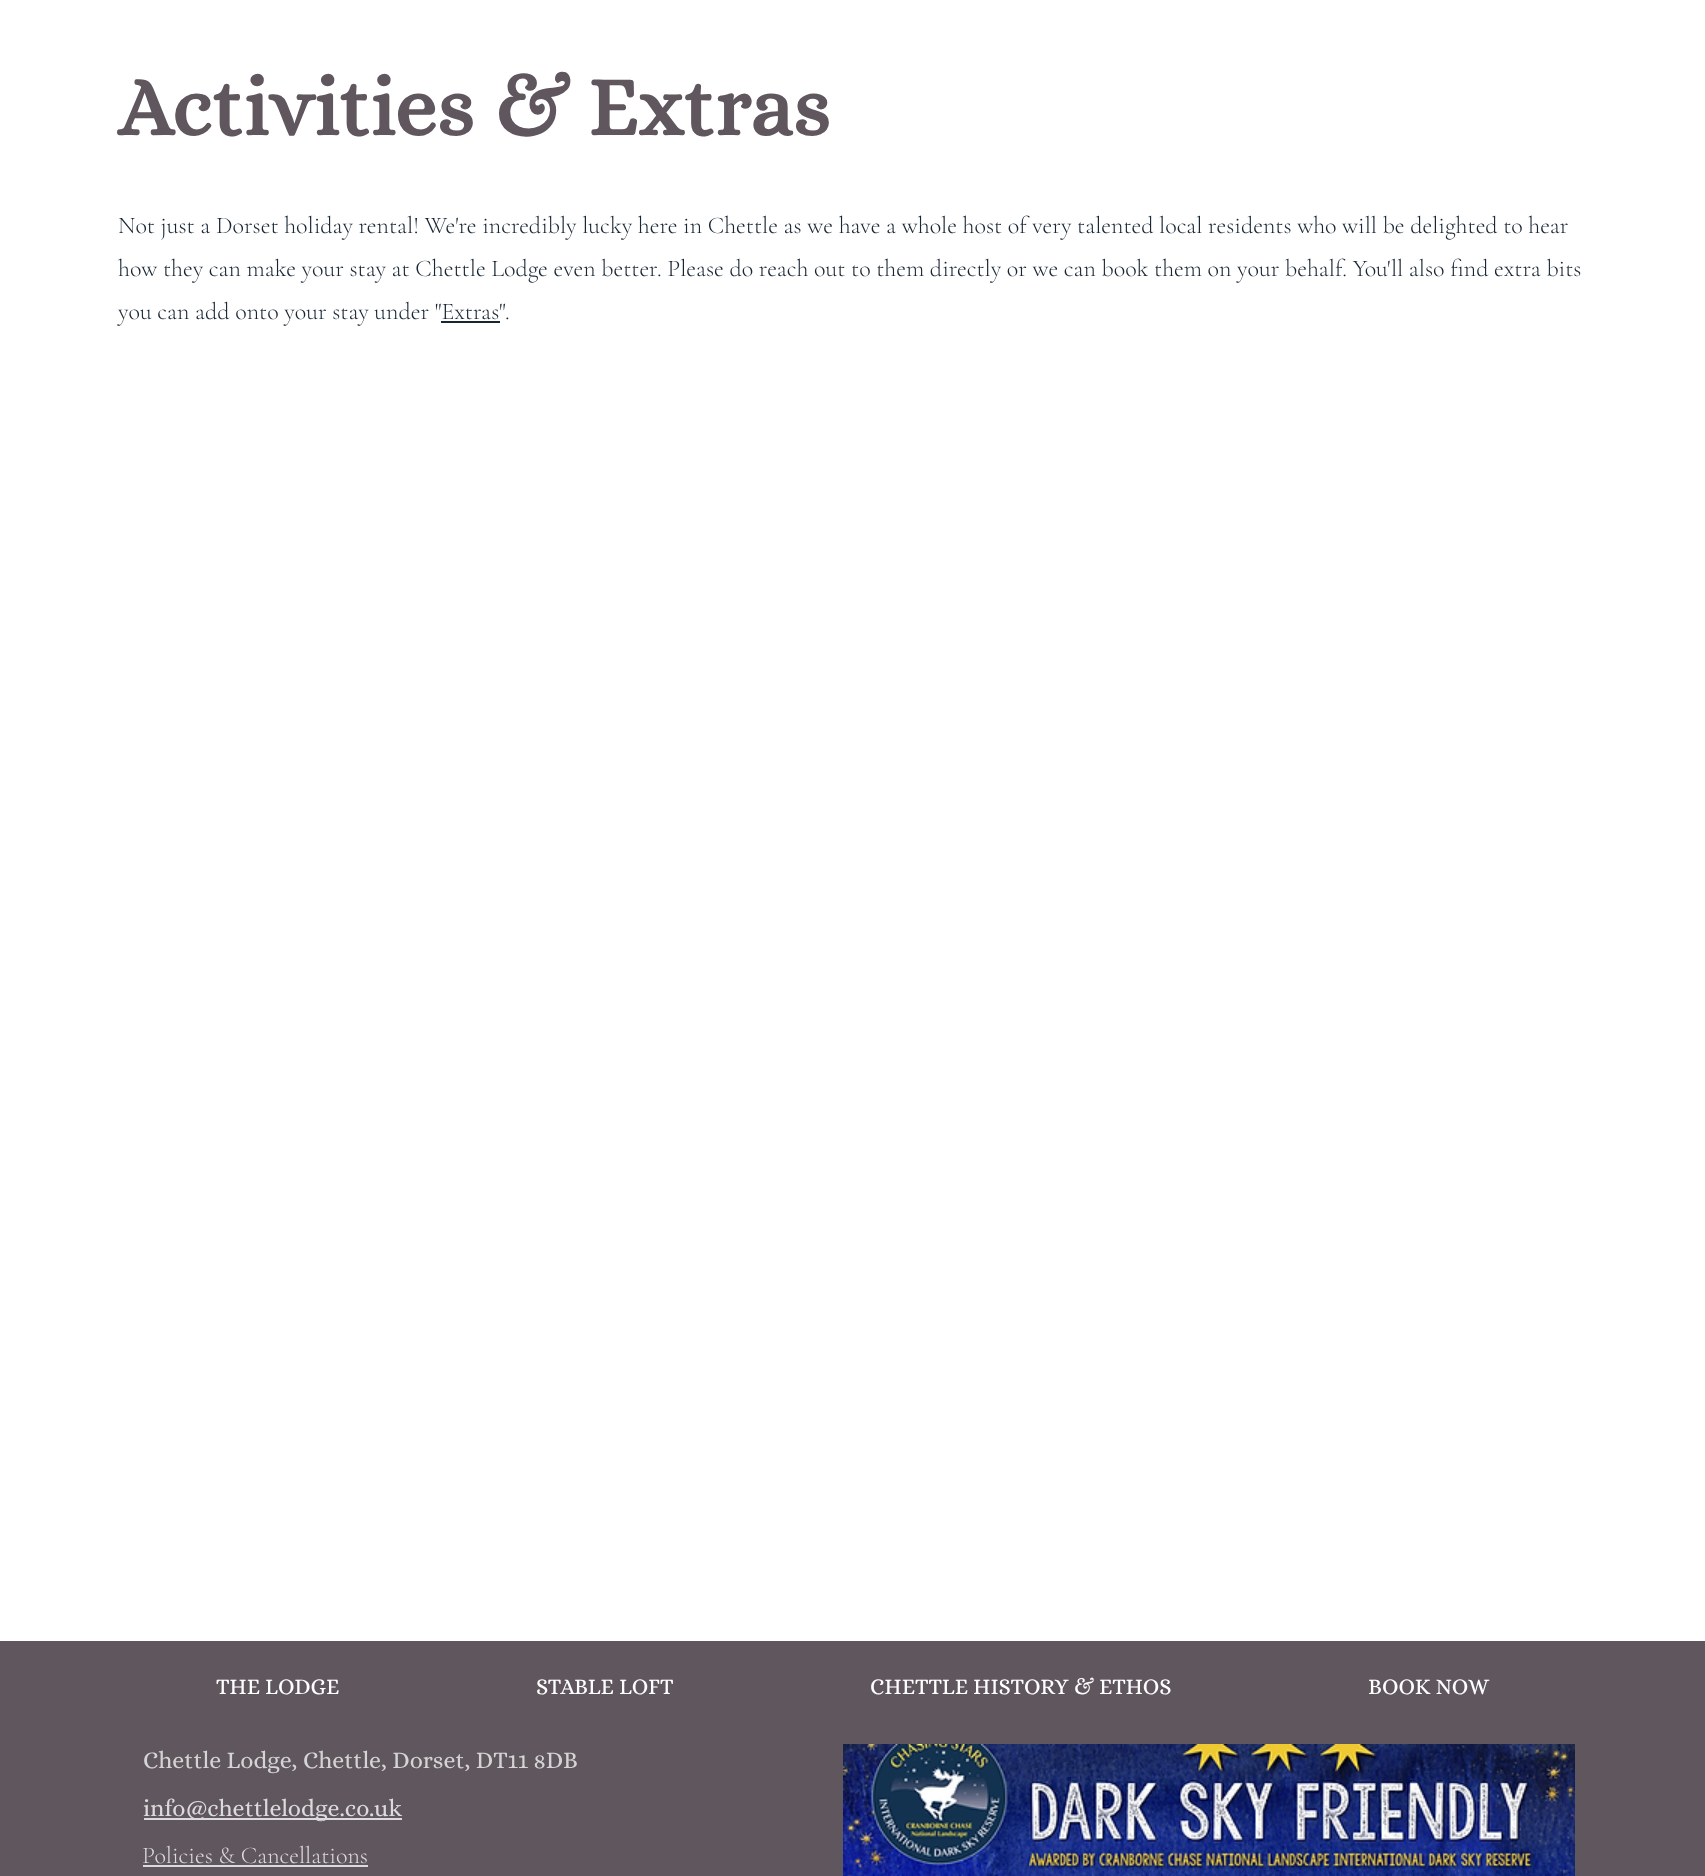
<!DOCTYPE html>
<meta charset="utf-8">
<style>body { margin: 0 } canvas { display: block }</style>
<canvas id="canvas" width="1705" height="1876"></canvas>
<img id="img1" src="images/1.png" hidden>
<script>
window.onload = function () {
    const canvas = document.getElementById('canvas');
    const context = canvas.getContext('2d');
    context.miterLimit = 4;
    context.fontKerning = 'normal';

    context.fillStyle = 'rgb(255, 255, 255)';
    context.fillRect(0, 0, 1705, 1876);
    context.fillStyle = 'rgb(24, 38, 52)';
    context.fillRect(441, 321, 59, 2);
    context.fillStyle = 'rgb(96, 86, 94)';
    context.fillRect(0, 1641, 1705, 235);
    context.drawImage(document.getElementById('img1'), 843, 1744, 732, 132);
    context.fillStyle = 'rgb(219, 219, 219)';
    context.fillRect(144, 1818, 258, 2);
    context.fillRect(143, 1865, 225, 2);
    context.font = 'bold 84px Alice';
    context.fillStyle = 'rgb(96, 86, 94)';
    context.fillText('Activities & Extras', 118, 135);
    context.font = '300 24px Cormorant Garamond';
    context.fillStyle = 'rgb(24, 38, 52)';
    context.fillText('Not just a Dorset holiday rental! We\'re incredibly lucky here in Chettle as we have a whole host of very talented local residents who will be delighted to hear', 118, 233);
    context.fillText('how they can make your stay at Chettle Lodge even better. Please do reach out to them directly or we can book them on your behalf. You\'ll also find extra bits', 118, 276);
    context.fillText('you can add onto your stay under "Extras".', 118, 319);
    context.font = '22.5px Alice';
    context.fillStyle = 'rgb(255, 255, 255)';
    context.fillText('THE LODGE', 216, 1694);
    context.fillText('STABLE LOFT', 536, 1694);
    context.fillText('CHETTLE HISTORY & ETHOS', 870, 1694);
    context.fillText('BOOK NOW', 1368, 1694);
    context.font = '24px Alice';
    context.fillStyle = 'rgb(212, 212, 212)';
    context.fillText('Chettle Lodge, Chettle, Dorset, DT11 8DB', 143, 1768);
    context.fillStyle = 'rgb(219, 219, 219)';
    context.fillText('info@chettlelodge.co.uk', 143, 1816);
    context.font = '300 24px Cormorant Garamond';
    context.fillText('Policies & Cancellations', 142, 1863);
};
</script>
